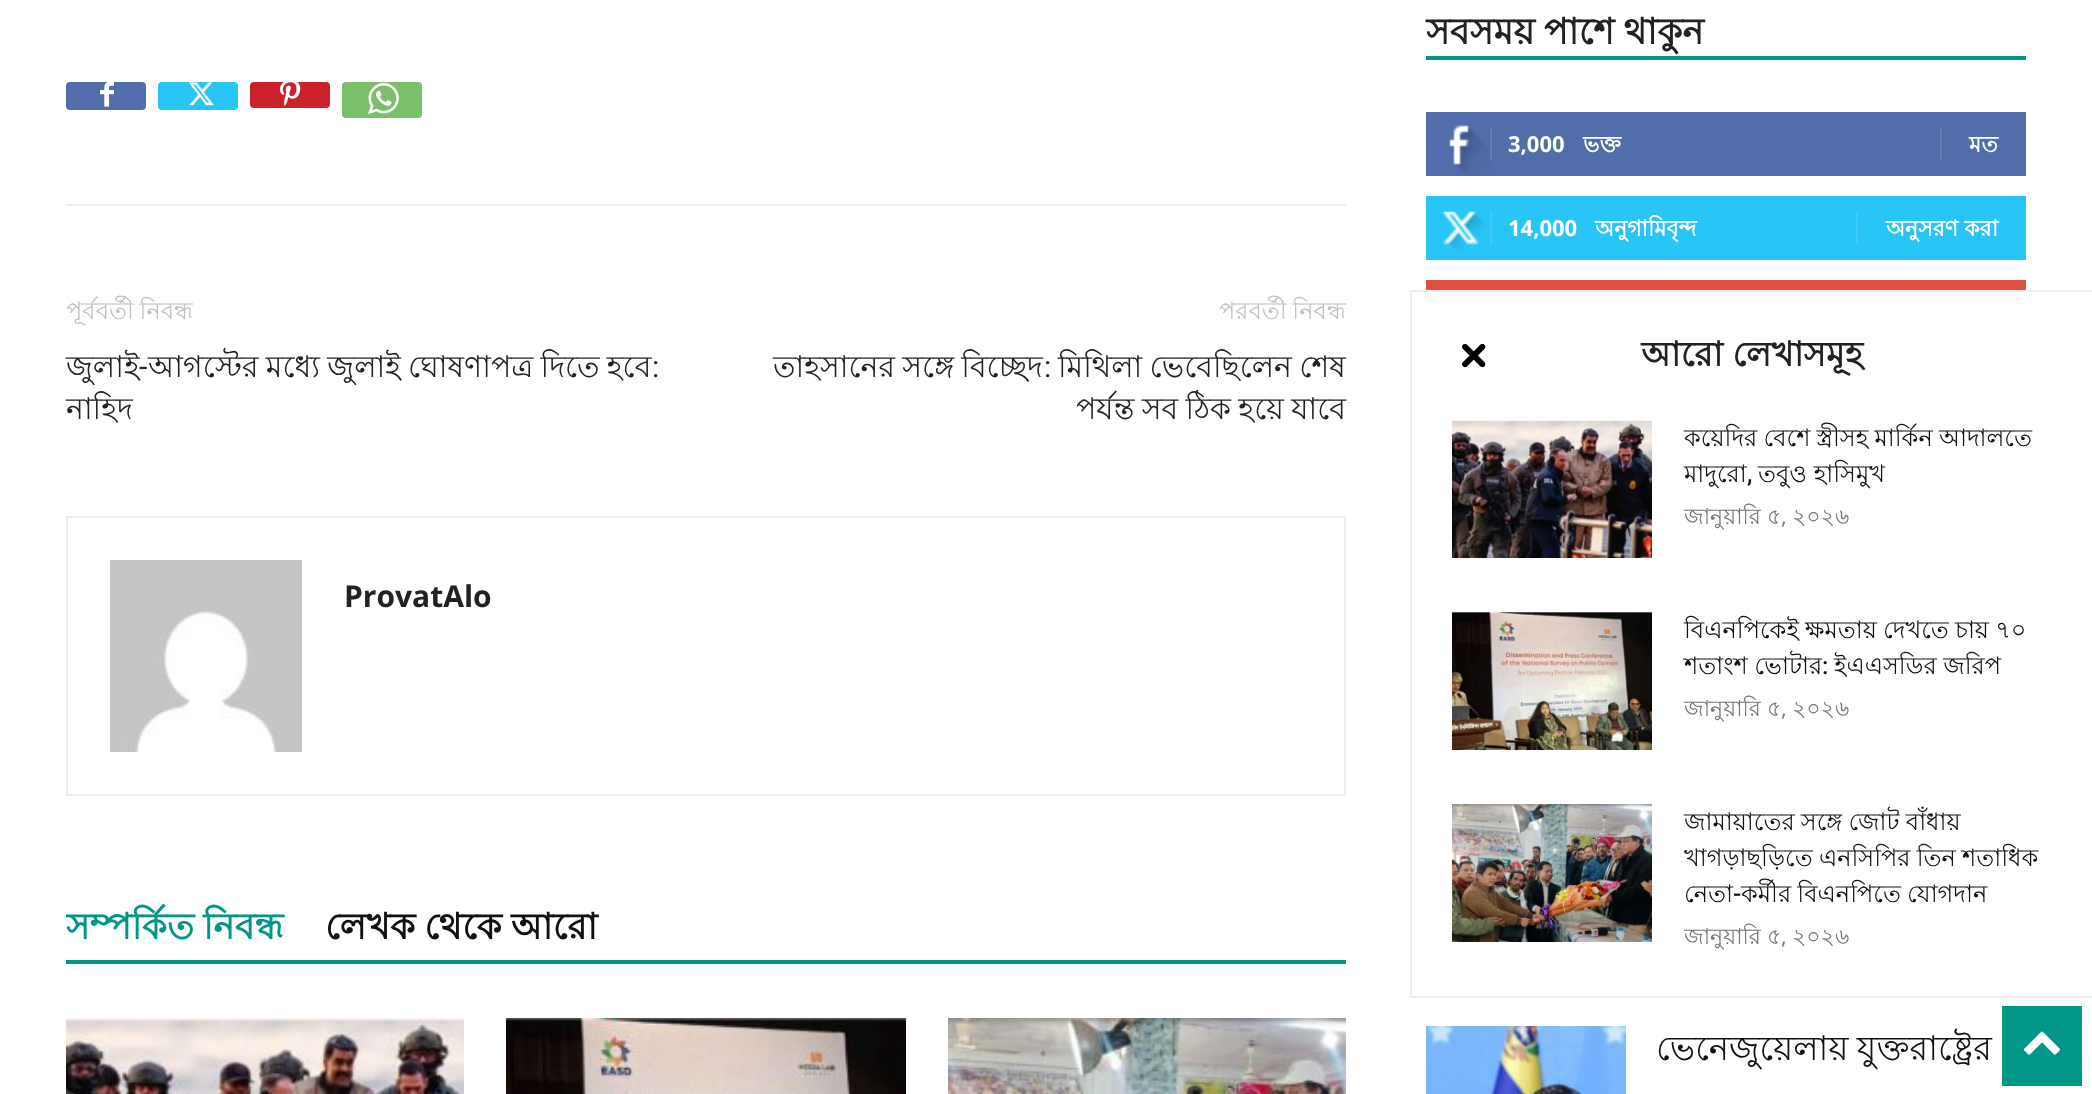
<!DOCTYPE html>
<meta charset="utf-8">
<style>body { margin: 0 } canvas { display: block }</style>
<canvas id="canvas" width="2092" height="1094"></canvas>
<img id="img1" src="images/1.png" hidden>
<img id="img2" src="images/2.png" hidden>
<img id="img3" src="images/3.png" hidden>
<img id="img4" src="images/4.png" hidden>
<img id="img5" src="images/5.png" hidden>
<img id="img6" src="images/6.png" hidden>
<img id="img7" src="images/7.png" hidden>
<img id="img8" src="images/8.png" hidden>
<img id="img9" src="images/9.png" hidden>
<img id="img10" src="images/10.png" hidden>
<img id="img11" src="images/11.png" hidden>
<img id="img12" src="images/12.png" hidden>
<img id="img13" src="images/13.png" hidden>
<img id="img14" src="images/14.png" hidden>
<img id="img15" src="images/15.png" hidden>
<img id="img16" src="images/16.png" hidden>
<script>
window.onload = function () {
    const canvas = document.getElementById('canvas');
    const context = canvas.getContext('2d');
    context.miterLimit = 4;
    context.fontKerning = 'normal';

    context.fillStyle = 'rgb(255, 255, 255)';
    context.fillRect(0, 0, 2092, 1094);
    context.fillStyle = 'rgb(237, 237, 237)';
    context.fillRect(66, 204, 1280, 2);
    context.fillStyle = 'rgb(81, 110, 171)';
    context.beginPath();
    context.roundRect(66, 82, 80, 28, 4);
    context.fill();
    context.drawImage(document.getElementById('img1'), 100, 82, 14, 25);
    context.fillStyle = 'rgb(41, 197, 246)';
    context.beginPath();
    context.roundRect(158, 82, 80, 28, 4);
    context.fill();
    context.drawImage(document.getElementById('img2'), 188, 82, 26, 24);
    context.fillStyle = 'rgb(202, 33, 42)';
    context.beginPath();
    context.roundRect(250, 82, 80, 26, 4);
    context.fill();
    context.drawImage(document.getElementById('img3'), 280, 82, 21, 24);
    context.fillStyle = 'rgb(123, 191, 106)';
    context.beginPath();
    context.roundRect(342, 82, 80, 36, 4);
    context.fill();
    context.drawImage(document.getElementById('img4'), 368, 83, 31, 31);
    context.strokeStyle = 'rgb(237, 237, 237)';
    context.lineWidth = 2;
    context.strokeRect(67, 517, 1278, 278);
    context.drawImage(document.getElementById('img5'), 110, 560, 192, 192);
    context.fillStyle = 'rgb(0, 150, 136)';
    context.fillRect(66, 960, 1280, 4);
    context.drawImage(document.getElementById('img6'), 66, 1018, 398, 76);
    context.drawImage(document.getElementById('img7'), 506, 1018, 400, 76);
    context.drawImage(document.getElementById('img8'), 948, 1018, 398, 76);
    context.fillRect(1426, 56, 600, 4);
    context.fillStyle = 'rgb(81, 110, 171)';
    context.fillRect(1426, 112, 600, 64);
    context.drawImage(document.getElementById('img9'), 1449, 125, 41, 51);
    context.fillStyle = 'rgb(98, 125, 179)';
    context.fillRect(1490, 128, 2, 32);
    context.fillRect(1940, 128, 2, 32);
    context.fillStyle = 'rgb(41, 197, 246)';
    context.fillRect(1426, 196, 600, 64);
    context.drawImage(document.getElementById('img10'), 1441, 211, 46, 42);
    context.fillStyle = 'rgb(62, 203, 247)';
    context.fillRect(1490, 212, 2, 32);
    context.fillRect(1856, 212, 2, 32);
    context.fillStyle = 'rgb(225, 78, 66)';
    context.fillRect(1426, 280, 600, 10);
    context.drawImage(document.getElementById('img11'), 1426, 1026, 200, 68);
    context.fillStyle = 'rgb(237, 237, 237)';
    context.fillRect(1410, 290, 682, 2);
    context.fillRect(1410, 996, 682, 2);
    context.fillRect(1410, 290, 2, 708);
    context.drawImage(document.getElementById('img12'), 1462, 343, 24, 25);
    context.drawImage(document.getElementById('img13'), 1452, 420, 200, 138);
    context.drawImage(document.getElementById('img14'), 1452, 612, 200, 138);
    context.drawImage(document.getElementById('img15'), 1452, 804, 200, 138);
    context.fillStyle = 'rgb(0, 150, 136)';
    context.fillRect(2002, 1006, 80, 80);
    context.drawImage(document.getElementById('img16'), 2024, 1031, 36, 24);
    context.wordSpacing = '-1px';
    context.font = '24px Lohit Bengali';
    context.fillStyle = 'rgb(193, 193, 193)';
    context.fillText('পূর্ববর্তী নিবন্ধ', 66, 319);
    context.wordSpacing = '0px';
    context.font = '30px Lohit Bengali';
    context.fillStyle = 'rgb(34, 34, 34)';
    context.fillText('জুলাই', 66, 377);
    context.font = '30px Roboto';
    context.fillText('-', 139, 377);
    context.wordSpacing = '-1px';
    context.font = '30px Lohit Bengali';
    context.fillText('আগস্টের মধ্যে জুলাই ঘোষণাপত্র দিতে হবে', 148, 377);
    context.wordSpacing = '0px';
    context.font = '30px Roboto';
    context.fillText(':', 652, 377);
    context.font = '30px Lohit Bengali';
    context.fillText('নাহিদ', 66, 419);
    context.wordSpacing = '-1px';
    context.font = '24px Lohit Bengali';
    context.fillStyle = 'rgb(193, 193, 193)';
    context.fillText('পরবর্তী নিবন্ধ', 1219, 319);
    context.font = '30px Lohit Bengali';
    context.fillStyle = 'rgb(34, 34, 34)';
    context.fillText('তাহসানের সঙ্গে বিচ্ছেদ', 773, 377);
    context.wordSpacing = '0px';
    context.font = '30px Roboto';
    context.fillText(':', 1044, 377);
    context.wordSpacing = '-1px';
    context.font = '30px Lohit Bengali';
    context.fillText('মিথিলা ভেবেছিলেন শেষ', 1058, 377);
    context.fillText('পর্যন্ত সব ঠিক হয়ে যাবে', 1076, 419);
    context.wordSpacing = '0px';
    context.font = 'bold 30px Open Sans';
    context.fillText('ProvatAlo', 344, 607);
    context.save();
    context.beginPath();
    context.rect(66, 892, 1280, 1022);
    context.clip();
    context.wordSpacing = '-1px';
    context.font = 'bold 36px Lohit Bengali';
    context.fillStyle = 'rgb(0, 150, 136)';
    context.fillText('সম্পর্কিত নিবন্ধ', 66, 939);
    context.restore();
    context.wordSpacing = '-1px';
    context.font = 'bold 36px Lohit Bengali';
    context.fillStyle = 'rgb(17, 17, 17)';
    context.fillText('লেখক থেকে আরো', 325, 939);
    context.fillStyle = 'rgb(34, 34, 34)';
    context.fillText('সবসময় পাশে থাকুন', 1426, 44);
    context.wordSpacing = '0px';
    context.font = 'bold 22px Open Sans';
    context.fillStyle = 'rgb(255, 255, 255)';
    context.fillText('3,000', 1508, 152);
    context.font = 'bold 22px Lohit Bengali';
    context.fillText('ভক্ত', 1583, 152);
    context.fillText('মত', 1969, 152);
    context.font = 'bold 22px Open Sans';
    context.fillText('14,000', 1508, 236);
    context.font = 'bold 22px Lohit Bengali';
    context.fillText('অনুগামিবৃন্দ', 1595, 236);
    context.fillText('অনুসরণ করা', 1886, 236);
    context.wordSpacing = '-1px';
    context.font = '34px Lohit Bengali';
    context.fillStyle = 'rgb(17, 17, 17)';
    context.fillText('ভেনেজুয়েলায় যুক্তরাষ্ট্রের', 1656, 1060);
    context.wordSpacing = '0px';
    context.font = 'bold 34px Lohit Bengali';
    context.fillStyle = 'rgb(34, 34, 34)';
    context.fillText('আরো লেখাসমূহ', 1641, 366);
    context.wordSpacing = '-0.5px';
    context.font = '24px Lohit Bengali';
    context.fillStyle = 'rgb(17, 17, 17)';
    context.fillText('কয়েদির বেশে স্ত্রীসহ মার্কিন আদালতে', 1684, 446);
    context.wordSpacing = '0px';
    context.fillText('মাদুরো', 1684, 482);
    context.font = '500 24px Roboto';
    context.fillText(',', 1747, 482);
    context.font = '24px Lohit Bengali';
    context.fillText('তবুও হাসিমুখ', 1758, 482);
    context.font = '22px Lohit Bengali';
    context.fillStyle = 'rgb(118, 118, 118)';
    context.fillText('জানুয়ারি ৫', 1684, 524);
    context.font = '22px Open Sans';
    context.fillText(',', 1781, 524);
    context.font = '22px Lohit Bengali';
    context.fillText('২০২৬', 1792, 524);
    context.wordSpacing = '-0.5px';
    context.font = '24px Lohit Bengali';
    context.fillStyle = 'rgb(17, 17, 17)';
    context.fillText('বিএনপিকেই ক্ষমতায় দেখতে চায় ৭০', 1684, 638);
    context.wordSpacing = '0px';
    context.fillText('শতাংশ ভোটার', 1684, 674);
    context.font = '500 24px Roboto';
    context.fillText(':', 1822, 674);
    context.font = '24px Lohit Bengali';
    context.fillText('ইএএসডির জরিপ', 1834, 674);
    context.font = '22px Lohit Bengali';
    context.fillStyle = 'rgb(118, 118, 118)';
    context.fillText('জানুয়ারি ৫', 1684, 716);
    context.font = '22px Open Sans';
    context.fillText(',', 1781, 716);
    context.font = '22px Lohit Bengali';
    context.fillText('২০২৬', 1792, 716);
    context.wordSpacing = '-0.5px';
    context.font = '24px Lohit Bengali';
    context.fillStyle = 'rgb(17, 17, 17)';
    context.fillText('জামায়াতের সঙ্গে জোট বাঁধায়', 1684, 830);
    context.fillText('খাগড়াছড়িতে এনসিপির তিন শতাধিক', 1684, 866);
    context.wordSpacing = '0px';
    context.fillText('নেতা', 1684, 902);
    context.font = '500 24px Roboto';
    context.fillText('-', 1733, 902);
    context.wordSpacing = '-0.5px';
    context.font = '24px Lohit Bengali';
    context.fillText('কর্মীর বিএনপিতে যোগদান', 1741, 902);
    context.wordSpacing = '0px';
    context.font = '22px Lohit Bengali';
    context.fillStyle = 'rgb(118, 118, 118)';
    context.fillText('জানুয়ারি ৫', 1684, 944);
    context.font = '22px Open Sans';
    context.fillText(',', 1781, 944);
    context.font = '22px Lohit Bengali';
    context.fillText('২০২৬', 1792, 944);
};
</script>
